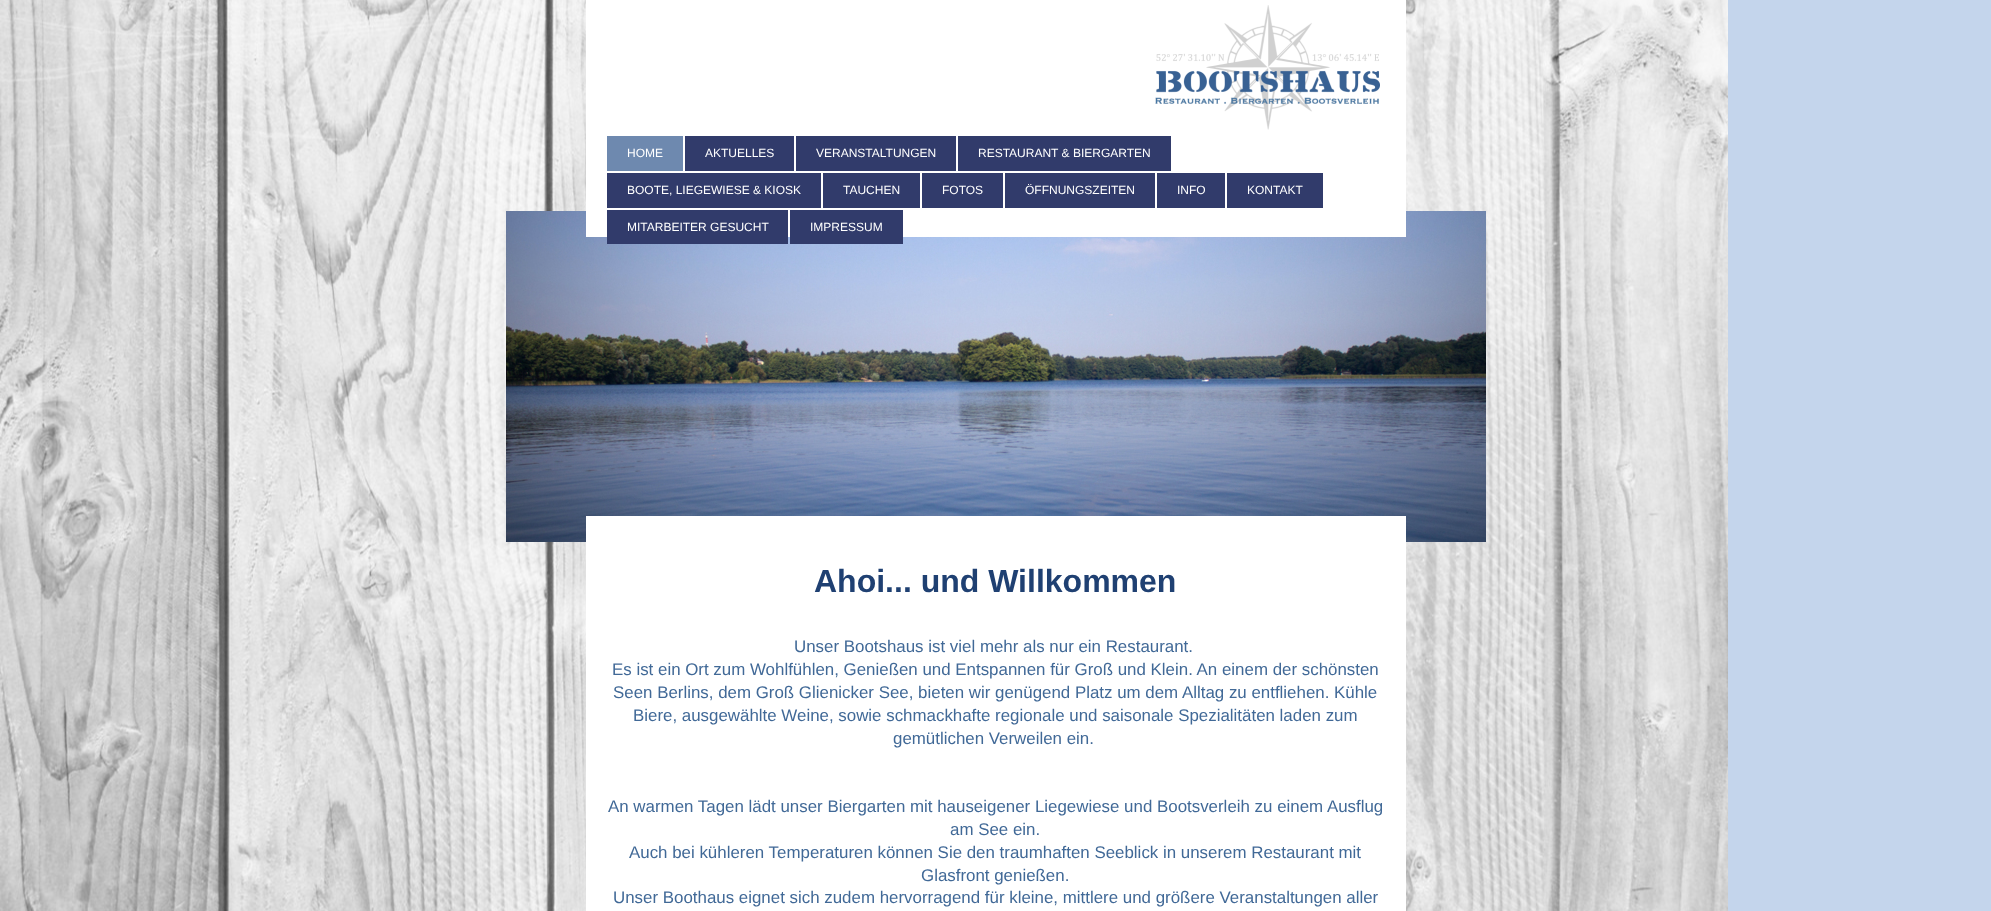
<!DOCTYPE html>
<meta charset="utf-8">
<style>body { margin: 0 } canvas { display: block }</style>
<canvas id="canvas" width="1991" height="911"></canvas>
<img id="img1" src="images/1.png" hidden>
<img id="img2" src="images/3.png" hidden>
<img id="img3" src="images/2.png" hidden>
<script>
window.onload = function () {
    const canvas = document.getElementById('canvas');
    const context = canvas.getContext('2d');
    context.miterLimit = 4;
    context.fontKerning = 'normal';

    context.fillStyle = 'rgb(196, 213, 236)';
    context.fillRect(0, 0, 1991, 911);
    context.drawImage(document.getElementById('img1'), 0, 0, 1728, 911);
    context.drawImage(document.getElementById('img2'), 506, 211, 980, 331);
    context.fillStyle = 'rgb(255, 255, 255)';
    context.fillRect(586, 0, 820, 237);
    context.drawImage(document.getElementById('img3'), 1155, 5, 225, 125);
    context.fillStyle = 'rgb(110, 137, 175)';
    context.fillRect(607, 136, 76, 35);
    context.fillStyle = 'rgb(49, 59, 107)';
    context.fillRect(685, 136, 109, 35);
    context.fillRect(796, 136, 160, 35);
    context.fillRect(958, 136, 213, 35);
    context.fillRect(607, 173, 214, 35);
    context.fillRect(823, 173, 97, 35);
    context.fillRect(922, 173, 81, 35);
    context.fillRect(1005, 173, 150, 35);
    context.fillRect(1157, 173, 68, 35);
    context.fillRect(1227, 173, 96, 35);
    context.fillRect(607, 210, 181, 34);
    context.fillRect(790, 210, 113, 34);
    context.fillStyle = 'rgb(255, 255, 255)';
    context.fillRect(586, 516, 820, 395);
    context.font = '12px Liberation Sans';
    context.fillText('HOME', 627, 157);
    context.fillText('AKTUELLES', 705, 157);
    context.fillText('VERANSTALTUNGEN', 816, 157);
    context.fillText('RESTAURANT & BIERGARTEN', 978, 157);
    context.fillText('BOOTE, LIEGEWIESE & KIOSK', 627, 194);
    context.fillText('TAUCHEN', 843, 194);
    context.fillText('FOTOS', 942, 194);
    context.fillText('ÖFFNUNGSZEITEN', 1025, 194);
    context.fillText('INFO', 1177, 194);
    context.fillText('KONTAKT', 1247, 194);
    context.fillText('MITARBEITER GESUCHT', 627, 231);
    context.fillText('IMPRESSUM', 810, 231);
    context.font = 'bold 32px Liberation Sans';
    context.fillStyle = 'rgb(31, 64, 114)';
    context.fillText('Ahoi... und Willkommen', 814, 592);
    context.font = '16.9px Liberation Sans';
    context.fillStyle = 'rgb(65, 105, 151)';
    context.fillText('Unser Bootshaus ist viel mehr als nur ein Restaurant.', 794, 652);
    context.fillText('Es ist ein Ort zum Wohlfühlen, Genießen und Entspannen für Groß und Klein. An einem der schönsten', 612, 675);
    context.fillText('Seen Berlins, dem Groß Glienicker See, bieten wir genügend Platz um dem Alltag zu entfliehen. Kühle', 613, 698);
    context.fillText('Biere, ausgewählte Weine, sowie schmackhafte regionale und saisonale Spezialitäten laden zum', 633, 721);
    context.fillText('gemütlichen Verweilen ein.', 893, 744);
    context.fillText('An warmen Tagen lädt unser Biergarten mit hauseigener Liegewiese und Bootsverleih zu einem Ausflug', 608, 812);
    context.fillText('am See ein.', 950, 835);
    context.fillText('Auch bei kühleren Temperaturen können Sie den traumhaften Seeblick in unserem Restaurant mit', 629, 858);
    context.fillText('Glasfront genießen.', 921, 881);
    context.fillText('Unser Boothaus eignet sich zudem hervorragend für kleine, mittlere und größere Veranstaltungen aller', 613, 903);
};
</script>
